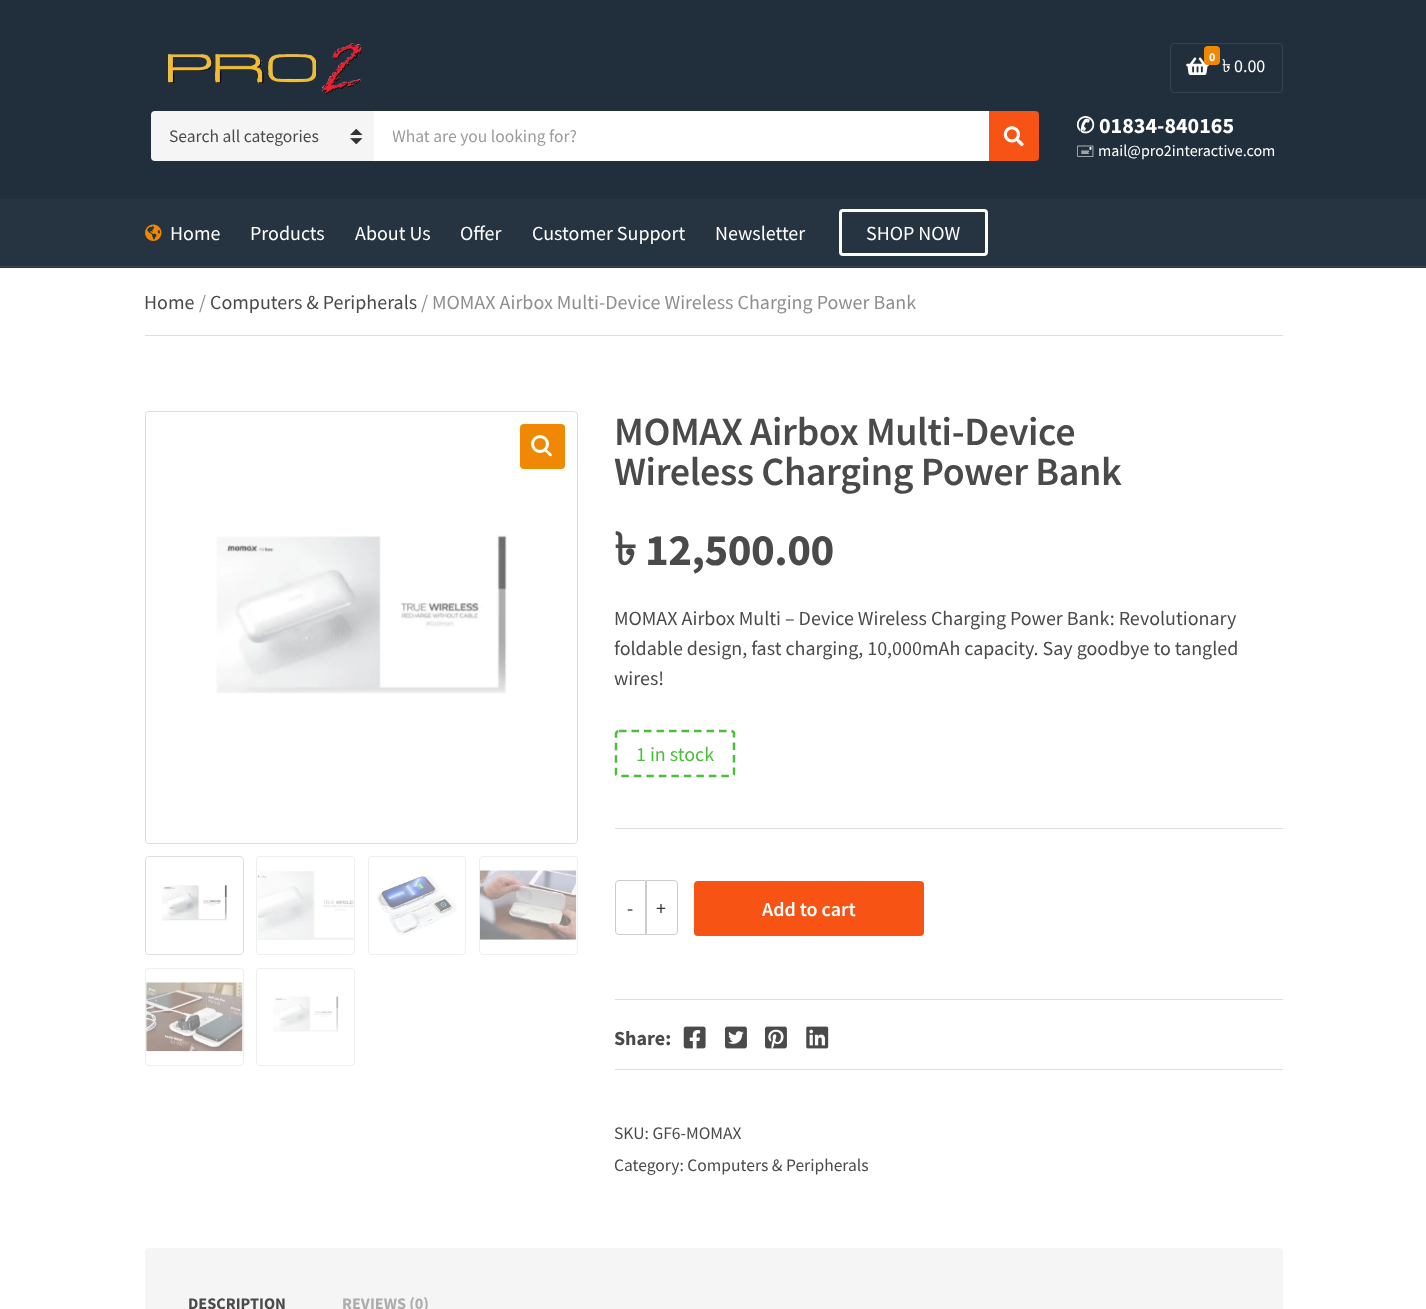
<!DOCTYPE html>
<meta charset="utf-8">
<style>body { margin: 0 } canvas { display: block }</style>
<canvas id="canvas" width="1426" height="1309"></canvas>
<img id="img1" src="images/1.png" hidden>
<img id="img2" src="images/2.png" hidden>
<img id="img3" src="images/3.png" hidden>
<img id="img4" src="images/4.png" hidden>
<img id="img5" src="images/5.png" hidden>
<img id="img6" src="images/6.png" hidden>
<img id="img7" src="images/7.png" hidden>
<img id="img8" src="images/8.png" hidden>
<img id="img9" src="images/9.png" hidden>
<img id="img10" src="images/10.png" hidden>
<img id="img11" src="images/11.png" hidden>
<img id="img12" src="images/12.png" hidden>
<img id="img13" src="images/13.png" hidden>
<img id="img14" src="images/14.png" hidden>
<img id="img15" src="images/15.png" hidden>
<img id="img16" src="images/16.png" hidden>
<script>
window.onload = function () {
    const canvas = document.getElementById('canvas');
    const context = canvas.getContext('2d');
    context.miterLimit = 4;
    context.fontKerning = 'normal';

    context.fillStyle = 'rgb(255, 255, 255)';
    context.fillRect(0, 0, 1426, 1309);
    context.fillStyle = 'rgb(33, 46, 60)';
    context.fillRect(0, 0, 1426, 199);
    context.drawImage(document.getElementById('img1'), 168, 43, 194, 52);
    context.beginPath();
    context.roundRect(1170.5, 43.5, 112, 49, 3.5);
    context.strokeStyle = 'rgb(55, 67, 80)';
    context.stroke();
    context.drawImage(document.getElementById('img2'), 1186, 57, 23, 18);
    context.fillStyle = 'rgb(240, 136, 4)';
    context.beginPath();
    context.roundRect(1204, 46, 16, 19, 4);
    context.fill();
    context.fillStyle = 'rgb(245, 245, 245)';
    context.beginPath();
    context.roundRect(151, 111, 223, 50, [4, 0, 0, 4]);
    context.fill();
    context.drawImage(document.getElementById('img3'), 350, 129, 13, 15);
    context.fillStyle = 'rgb(255, 255, 255)';
    context.fillRect(374, 111, 615, 50);
    context.fillStyle = 'rgb(246, 83, 20)';
    context.beginPath();
    context.roundRect(989, 111, 50, 50, [0, 4, 4, 0]);
    context.fill();
    context.drawImage(document.getElementById('img4'), 1003, 126, 21, 21);
    context.fillStyle = 'rgb(38, 51, 65)';
    context.fillRect(0, 199, 1426, 69);
    context.fillStyle = 'rgb(60, 71, 84)';
    context.fillRect(0, 266, 1426, 1);
    context.drawImage(document.getElementById('img5'), 145, 224, 17, 17);
    context.beginPath();
    context.roundRect(840.5, 210.5, 146, 44, 2.5);
    context.strokeStyle = 'rgb(255, 255, 255)';
    context.lineWidth = 3;
    context.stroke();
    context.fillStyle = 'rgb(221, 221, 221)';
    context.fillRect(145, 335, 1138, 1);
    context.beginPath();
    context.roundRect(145.5, 411.5, 432, 432, 3.5);
    context.strokeStyle = 'rgb(221, 221, 221)';
    context.lineWidth = 1;
    context.stroke();
    context.drawImage(document.getElementById('img6'), 216, 535, 291, 159);
    context.fillStyle = 'rgb(240, 136, 4)';
    context.beginPath();
    context.roundRect(520, 424, 45, 45, 4);
    context.fill();
    context.beginPath();
    context.arc(540, 444, 7.5, 0, 2 * Math.PI);
    context.strokeStyle = 'rgb(255, 255, 255)';
    context.lineWidth = 3;
    context.stroke();
    context.fillStyle = 'rgb(255, 255, 255)';
    context.beginPath();
    context.moveTo(544.5, 449);
    context.bezierCurveTo(546, 447.5, 548, 451, 549, 451.5);
    context.bezierCurveTo(550, 452.5, 553, 454.5, 551.5, 456);
    context.bezierCurveTo(550, 457.5, 548, 454, 547, 453.5);
    context.bezierCurveTo(546.5, 452.5, 543, 450.5, 544.5, 449);
    context.closePath();
    context.fill();
    context.beginPath();
    context.roundRect(145.5, 856.5, 98, 98, 3.5);
    context.strokeStyle = 'rgb(221, 221, 221)';
    context.lineWidth = 1;
    context.stroke();
    context.drawImage(document.getElementById('img7'), 146, 885, 96, 69);
    context.beginPath();
    context.roundRect(256.5, 856.5, 98, 98, 3.5);
    context.strokeStyle = 'rgb(238, 238, 238)';
    context.stroke();
    context.drawImage(document.getElementById('img8'), 257, 871, 97, 69);
    context.beginPath();
    context.roundRect(368.5, 856.5, 97, 98, 3.5);
    context.stroke();
    context.drawImage(document.getElementById('img9'), 377, 876, 80, 59);
    context.beginPath();
    context.roundRect(479.5, 856.5, 98, 98, 3.5);
    context.stroke();
    context.drawImage(document.getElementById('img10'), 480, 869, 97, 71);
    context.beginPath();
    context.roundRect(145.5, 968.5, 98, 97, 3.5);
    context.stroke();
    context.drawImage(document.getElementById('img11'), 146, 981, 97, 71);
    context.beginPath();
    context.roundRect(256.5, 968.5, 98, 97, 3.5);
    context.stroke();
    context.drawImage(document.getElementById('img12'), 273, 996, 66, 36);
    context.beginPath();
    context.moveTo(619, 731);
    context.lineTo(731, 731);
    context.bezierCurveTo(732.5, 731, 734, 732.5, 734, 734);
    context.lineTo(734, 774);
    context.bezierCurveTo(734, 775, 732.5, 776, 731, 776);
    context.lineTo(619, 776);
    context.bezierCurveTo(617.5, 776, 616, 775, 616, 774);
    context.lineTo(616, 734);
    context.bezierCurveTo(616, 732.5, 617.5, 731, 619, 731);
    context.closePath();
    context.strokeStyle = 'rgb(75, 191, 57)';
    context.lineWidth = 2.5;
    context.setLineDash([7.5, 5]);
    context.stroke();
    context.fillStyle = 'rgb(221, 221, 221)';
    context.fillRect(615, 828, 668, 1);
    context.beginPath();
    context.roundRect(615.5, 880.5, 30, 54, [3.5, 0, 0, 3.5]);
    context.strokeStyle = 'rgb(204, 204, 204)';
    context.lineWidth = 1;
    context.setLineDash([]);
    context.stroke();
    context.beginPath();
    context.roundRect(646.5, 880.5, 31, 54, [0, 3.5, 3.5, 0]);
    context.stroke();
    context.fillStyle = 'rgb(246, 83, 20)';
    context.beginPath();
    context.roundRect(695.5, 882.5, 227, 52, 2.5);
    context.fill();
    context.strokeStyle = 'rgb(246, 83, 20)';
    context.lineWidth = 3;
    context.stroke();
    context.fillStyle = 'rgb(221, 221, 221)';
    context.fillRect(615, 999, 668, 1);
    context.drawImage(document.getElementById('img13'), 683, 1026, 23, 23);
    context.drawImage(document.getElementById('img14'), 725, 1026, 22, 23);
    context.drawImage(document.getElementById('img15'), 765, 1026, 22, 23);
    context.drawImage(document.getElementById('img16'), 806, 1026, 23, 23);
    context.fillRect(615, 1069, 668, 1);
    context.fillStyle = 'rgb(245, 245, 245)';
    context.beginPath();
    context.roundRect(145, 1248, 1138, 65, 4);
    context.fill();
    context.font = 'bold 12px Source Sans Pro';
    context.fillStyle = 'rgb(255, 255, 255)';
    context.fillText('0', 1209, 61);
    context.font = '18px Lohit Bengali';
    context.fillText('৳', 1222, 72);
    context.font = '18px Source Sans Pro';
    context.fillText('0.00', 1234, 72);
    context.font = '17.5px Source Sans Pro';
    context.fillStyle = 'rgb(74, 74, 74)';
    context.fillText('Search all categories', 169, 142);
    context.save();
    context.beginPath();
    context.rect(393, 125, 577, 23);
    context.clip();
    context.fillStyle = 'rgb(155, 155, 155)';
    context.fillText('What are you looking for?', 392, 142);
    context.restore();
    context.font = 'bold 22px DejaVu Sans';
    context.fillStyle = 'rgb(255, 255, 255)';
    context.fillText('✆', 1076, 133);
    context.font = 'bold 22px Source Sans Pro';
    context.fillText('01834-840165', 1099, 133);
    context.font = '16px "Noto Sans Symbols 2"';
    context.fillText('🖃', 1076, 156);
    context.font = '16px Source Sans Pro';
    context.fillText('mail@pro2interactive.com', 1098, 156);
    context.font = '20px Source Sans Pro';
    context.fillText('Home', 170, 240);
    context.fillText('Products', 250, 240);
    context.fillText('About Us', 355, 240);
    context.fillText('Offer', 460, 240);
    context.fillText('Customer Support', 532, 240);
    context.fillText('Newsletter', 715, 240);
    context.fillText('SHOP NOW', 866, 240);
    context.fillStyle = 'rgb(74, 74, 74)';
    context.fillText('Home', 144, 309);
    context.fillStyle = 'rgb(142, 142, 142)';
    context.fillText('/', 199, 309);
    context.fillStyle = 'rgb(74, 74, 74)';
    context.fillText('Computers & Peripherals', 210, 309);
    context.fillStyle = 'rgb(142, 142, 142)';
    context.fillText('/ MOMAX Airbox Multi-Device Wireless Charging Power Bank', 421, 309);
    context.letterSpacing = '-0.4px';
    context.font = '600 40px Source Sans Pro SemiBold';
    context.fillStyle = 'rgb(74, 74, 74)';
    context.fillText('MOMAX Airbox Multi-Device', 614, 445);
    context.fillText('Wireless Charging Power Bank', 614, 485);
    context.letterSpacing = '-0.5px';
    context.font = 'bold 45px Lohit Bengali';
    context.fillText('৳', 614, 565);
    context.font = 'bold 45px Source Sans Pro';
    context.fillText('12,500.00', 645, 565);
    context.letterSpacing = '0px';
    context.font = '20px Source Sans Pro';
    context.fillText('MOMAX Airbox Multi – Device Wireless Charging Power Bank: Revolutionary', 614, 625);
    context.fillText('foldable design, fast charging, 10,000mAh capacity. Say goodbye to tangled', 614, 655);
    context.fillText('wires!', 614, 685);
    context.fillStyle = 'rgb(75, 191, 57)';
    context.fillText('1 in stock', 636, 761);
    context.fillStyle = 'rgb(55, 55, 55)';
    context.fillText('-', 627, 915);
    context.fillText('+', 656, 915);
    context.font = '600 20px Source Sans Pro SemiBold';
    context.fillStyle = 'rgb(255, 255, 255)';
    context.fillText('Add to cart', 762, 916);
    context.font = 'bold 20px Source Sans Pro';
    context.fillStyle = 'rgb(74, 74, 74)';
    context.fillText('Share:', 614, 1045);
    context.font = '17.5px Source Sans Pro';
    context.fillText('SKU: GF6-MOMAX', 614, 1139);
    context.fillText('Category: Computers & Peripherals', 614, 1171);
    context.font = 'bold 16.25px Source Sans Pro';
    context.fillText('DESCRIPTION', 188, 1309);
    context.fillStyle = 'rgb(173, 173, 173)';
    context.fillText('REVIEWS (0)', 342, 1309);
};
</script>
